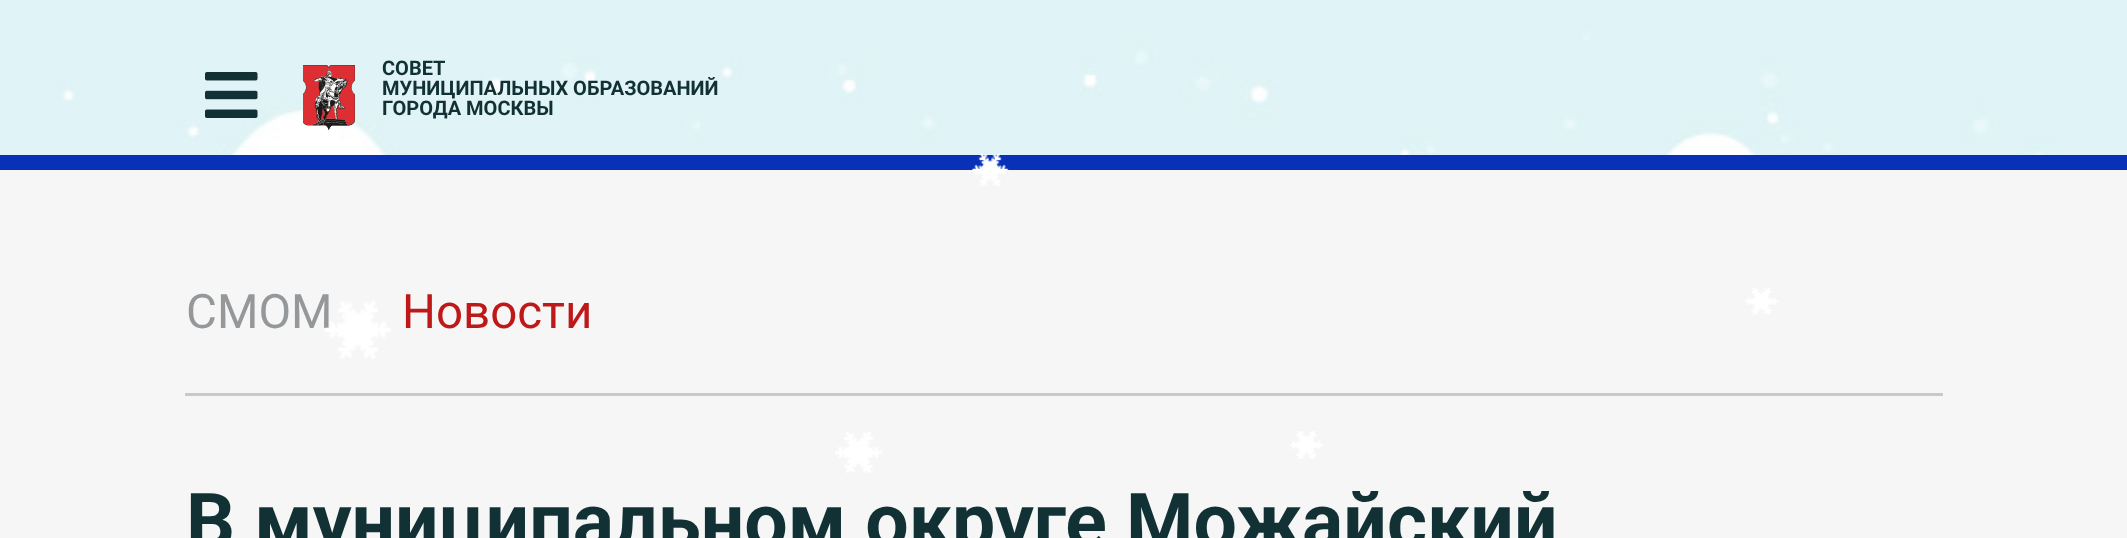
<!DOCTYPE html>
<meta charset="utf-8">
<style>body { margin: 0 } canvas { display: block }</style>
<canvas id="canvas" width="2127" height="538"></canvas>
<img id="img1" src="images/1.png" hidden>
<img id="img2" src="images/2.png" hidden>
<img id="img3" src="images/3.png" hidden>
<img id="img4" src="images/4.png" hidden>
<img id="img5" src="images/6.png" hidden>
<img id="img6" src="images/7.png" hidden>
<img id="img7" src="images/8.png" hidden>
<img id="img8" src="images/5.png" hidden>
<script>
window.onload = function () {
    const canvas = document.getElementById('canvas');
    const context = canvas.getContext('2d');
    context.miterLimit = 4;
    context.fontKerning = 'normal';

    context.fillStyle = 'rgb(246, 246, 246)';
    context.fillRect(0, 0, 2127, 538);
    context.drawImage(document.getElementById('img1'), 0, 0, 2127, 155);
    context.fillStyle = 'rgb(9, 49, 183)';
    context.fillRect(0, 155, 2127, 15);
    context.drawImage(document.getElementById('img2'), 205, 72, 53, 46);
    context.drawImage(document.getElementById('img3'), 303, 65, 52, 65);
    context.fillStyle = 'rgb(201, 201, 201)';
    context.fillRect(185, 393, 1758, 3);
    context.drawImage(document.getElementById('img4'), 972, 152, 37, 34);
    context.drawImage(document.getElementById('img5'), 1745, 288, 33, 27);
    context.drawImage(document.getElementById('img6'), 835, 432, 47, 41);
    context.drawImage(document.getElementById('img7'), 1290, 431, 33, 28);
    context.font = 'bold 20px Roboto';
    context.fillStyle = 'rgb(18, 49, 53)';
    context.fillText('СОВЕТ', 382, 75);
    context.fillText('МУНИЦИПАЛЬНЫХ ОБРАЗОВАНИЙ', 382, 95);
    context.fillText('ГОРОДА МОСКВЫ', 382, 115);
    context.font = '47.5px Roboto';
    context.fillStyle = 'rgb(149, 152, 154)';
    context.fillText('СМОМ', 186, 328);
    context.fillStyle = 'rgb(190, 24, 25)';
    context.fillText('Новости', 402, 328);
    context.drawImage(document.getElementById('img8'), 325, 299, 66, 60);
    context.font = 'bold 77px Roboto';
    context.fillStyle = 'rgb(18, 49, 53)';
    context.fillText('В муниципальном округе Можайский', 186, 548);
};
</script>
